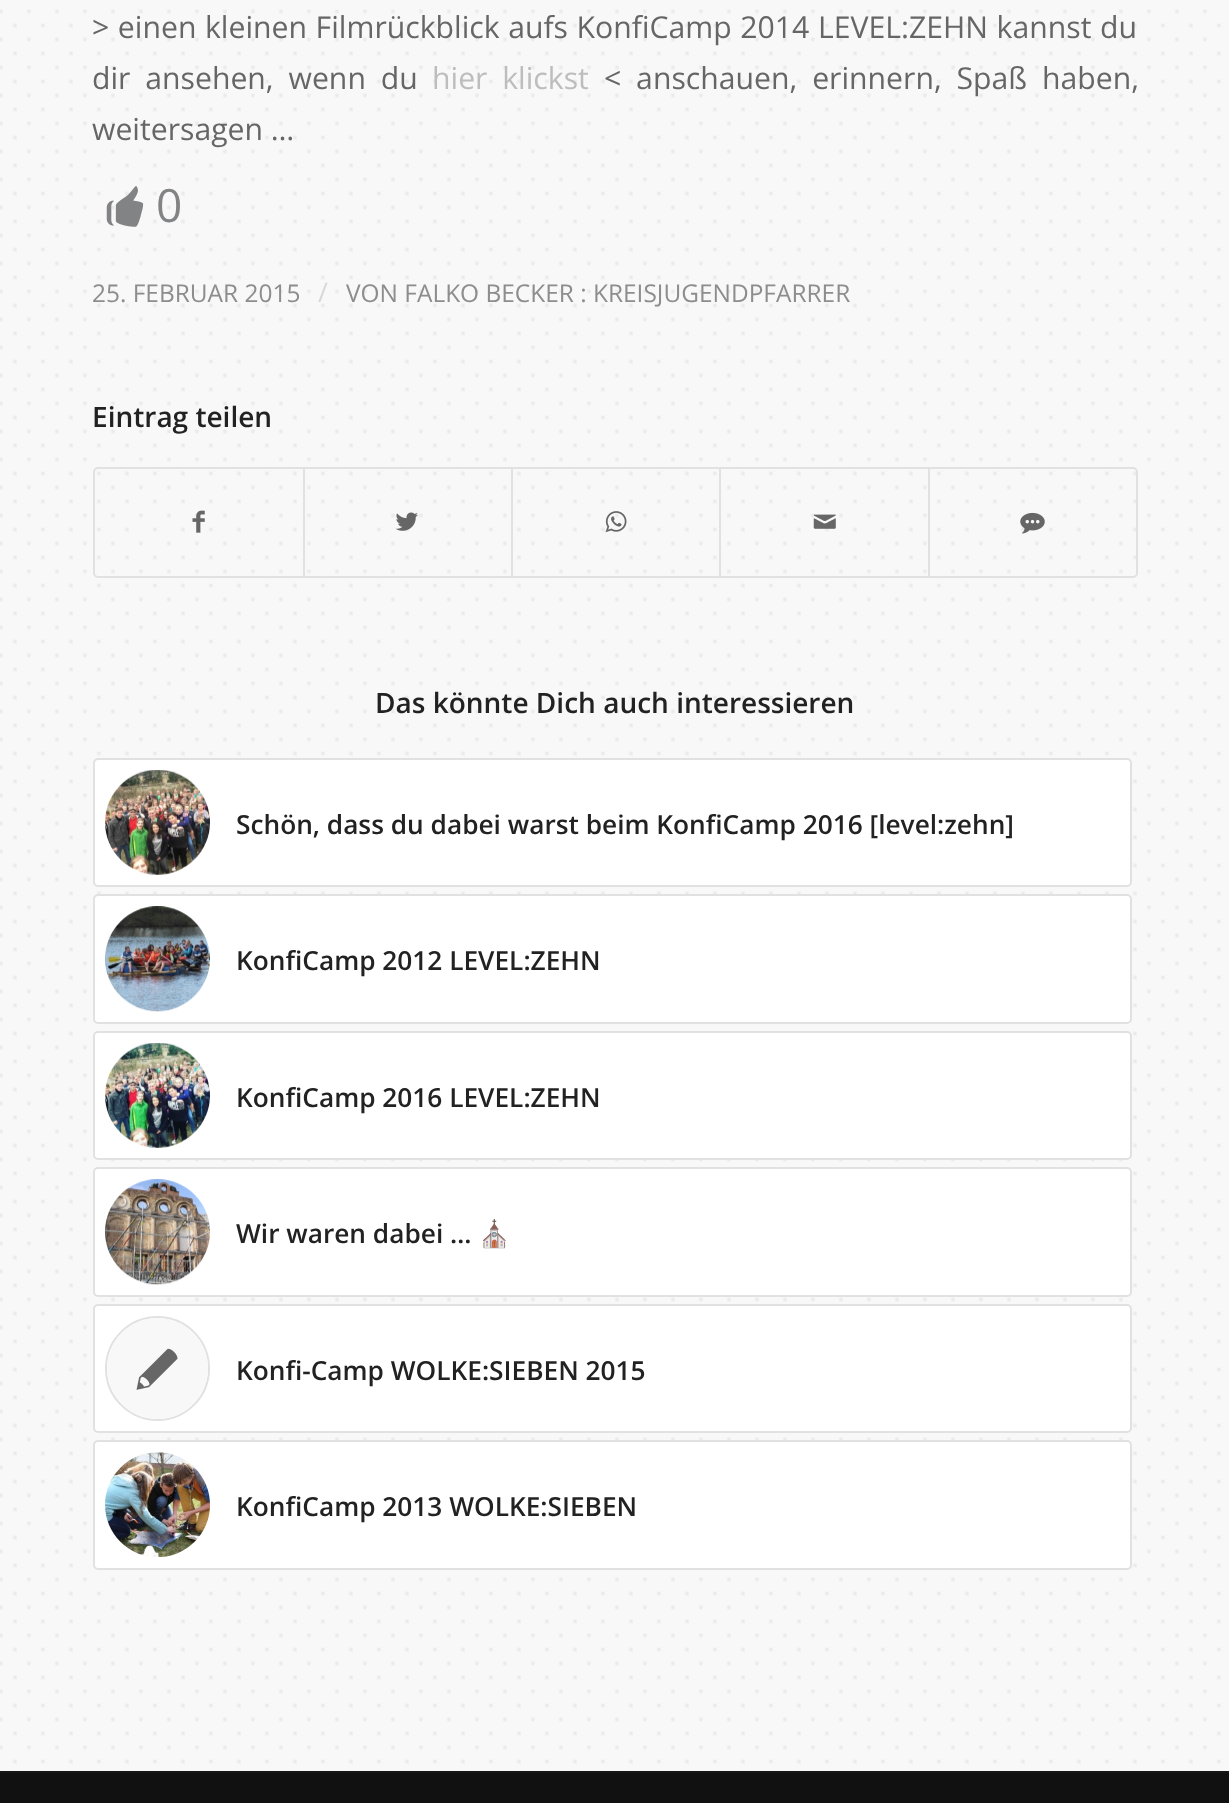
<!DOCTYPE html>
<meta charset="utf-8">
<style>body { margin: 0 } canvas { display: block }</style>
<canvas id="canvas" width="1229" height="1803"></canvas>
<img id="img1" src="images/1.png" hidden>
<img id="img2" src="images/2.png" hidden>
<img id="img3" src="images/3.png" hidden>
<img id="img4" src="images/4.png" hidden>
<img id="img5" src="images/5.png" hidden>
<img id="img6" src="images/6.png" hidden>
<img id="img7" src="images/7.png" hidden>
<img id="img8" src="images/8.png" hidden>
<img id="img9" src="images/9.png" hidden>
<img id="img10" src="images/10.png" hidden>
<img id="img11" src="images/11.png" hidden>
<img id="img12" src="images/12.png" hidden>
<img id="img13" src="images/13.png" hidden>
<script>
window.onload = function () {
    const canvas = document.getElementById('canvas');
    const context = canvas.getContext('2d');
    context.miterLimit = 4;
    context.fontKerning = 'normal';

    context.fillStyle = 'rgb(248, 248, 248)';
    context.fillRect(0, 0, 1229, 1803);
    context.drawImage(document.getElementById('img1'), 0, 9, 1221, 1755);
    context.drawImage(document.getElementById('img2'), 106, 186, 38, 41);
    context.beginPath();
    context.roundRect(94, 468, 1043, 109, 4);
    context.strokeStyle = 'rgb(225, 225, 225)';
    context.lineWidth = 2;
    context.stroke();
    context.drawImage(document.getElementById('img3'), 192, 510, 13, 23);
    context.fillStyle = 'rgb(225, 225, 225)';
    context.fillRect(303, 469, 2, 107);
    context.drawImage(document.getElementById('img4'), 395, 512, 23, 19);
    context.fillRect(511, 469, 2, 107);
    context.drawImage(document.getElementById('img5'), 605, 511, 22, 22);
    context.fillRect(719, 469, 2, 107);
    context.drawImage(document.getElementById('img6'), 813, 514, 23, 15);
    context.fillRect(928, 469, 2, 107);
    context.drawImage(document.getElementById('img7'), 1020, 512, 25, 22);
    context.fillStyle = 'rgb(255, 255, 255)';
    context.beginPath();
    context.roundRect(94, 759, 1037, 127, 4);
    context.fill();
    context.stroke();
    context.drawImage(document.getElementById('img8'), 105, 770, 105, 105);
    context.beginPath();
    context.roundRect(94, 895, 1037, 128, 4);
    context.fill();
    context.stroke();
    context.drawImage(document.getElementById('img9'), 105, 906, 105, 106);
    context.beginPath();
    context.roundRect(94, 1032, 1037, 127, 4);
    context.fill();
    context.stroke();
    context.drawImage(document.getElementById('img10'), 105, 1043, 105, 105);
    context.beginPath();
    context.roundRect(94, 1168, 1037, 128, 4);
    context.fill();
    context.stroke();
    context.drawImage(document.getElementById('img11'), 105, 1179, 105, 106);
    context.beginPath();
    context.roundRect(94, 1305, 1037, 127, 4);
    context.fill();
    context.stroke();
    context.beginPath();
    context.arc(157.5, 1368.5, 51.5, 0, 2 * Math.PI);
    context.stroke();
    context.fillStyle = 'rgb(248, 248, 248)';
    context.beginPath();
    context.arc(157.5, 1368.5, 50.5, 0, 2 * Math.PI);
    context.fill();
    context.drawImage(document.getElementById('img12'), 136, 1348, 42, 42);
    context.fillStyle = 'rgb(255, 255, 255)';
    context.beginPath();
    context.roundRect(94, 1441, 1037, 128, 4);
    context.fill();
    context.stroke();
    context.drawImage(document.getElementById('img13'), 105, 1452, 105, 106);
    context.fillStyle = 'rgb(17, 17, 17)';
    context.fillRect(0, 1773, 1229, 30);
    context.fillStyle = 'rgb(22, 22, 22)';
    context.fillRect(0, 1771, 1229, 2);
    context.wordSpacing = '0.75px';
    context.font = '30.2px Open Sans';
    context.fillStyle = 'rgb(102, 102, 102)';
    context.fillText('> einen kleinen Filmrückblick aufs KonfiCamp 2014 LEVEL:ZEHN kannst du', 92, 38);
    context.wordSpacing = '7px';
    context.fillText('dir ansehen, wenn du', 92, 89);
    context.fillStyle = 'rgb(189, 189, 189)';
    context.fillText('hier klickst', 432, 89);
    context.fillStyle = 'rgb(102, 102, 102)';
    context.fillText('< anschauen, erinnern, Spaß haben,', 604, 89);
    context.wordSpacing = '0px';
    context.fillText('weitersagen …', 92, 140);
    context.font = '46px Open Sans';
    context.fillStyle = 'rgb(130, 131, 132)';
    context.fillText('0', 156, 222);
    context.font = '24.45px Open Sans';
    context.fillStyle = 'rgb(141, 141, 141)';
    context.fillText('25. FEBRUAR 2015', 92, 302);
    context.font = '27px Open Sans';
    context.fillStyle = 'rgb(216, 216, 216)';
    context.fillText('/', 318, 302);
    context.font = '24.45px Open Sans';
    context.fillStyle = 'rgb(141, 141, 141)';
    context.fillText('VON FALKO BECKER : KREISJUGENDPFARRER', 346, 302);
    context.font = '600 28px Open Sans';
    context.fillStyle = 'rgb(34, 34, 34)';
    context.fillText('Eintrag teilen', 92, 427);
    context.fillText('Das könnte Dich auch interessieren', 375, 713);
    context.font = '600 26.25px Open Sans';
    context.fillText('Schön, dass du dabei warst beim KonfiCamp 2016 [level:zehn]', 236, 834);
    context.fillText('KonfiCamp 2012 LEVEL:ZEHN', 236, 970);
    context.fillText('KonfiCamp 2016 LEVEL:ZEHN', 236, 1107);
    context.fillText('Wir waren dabei …', 236, 1243);
    context.font = 'bold 26.25px Noto Color Emoji';
    context.fillText('⛪️', 478, 1243);
    context.font = '600 26.25px Open Sans';
    context.fillText('Konfi-Camp WOLKE:SIEBEN 2015', 236, 1380);
    context.fillText('KonfiCamp 2013 WOLKE:SIEBEN', 236, 1516);
};
</script>
